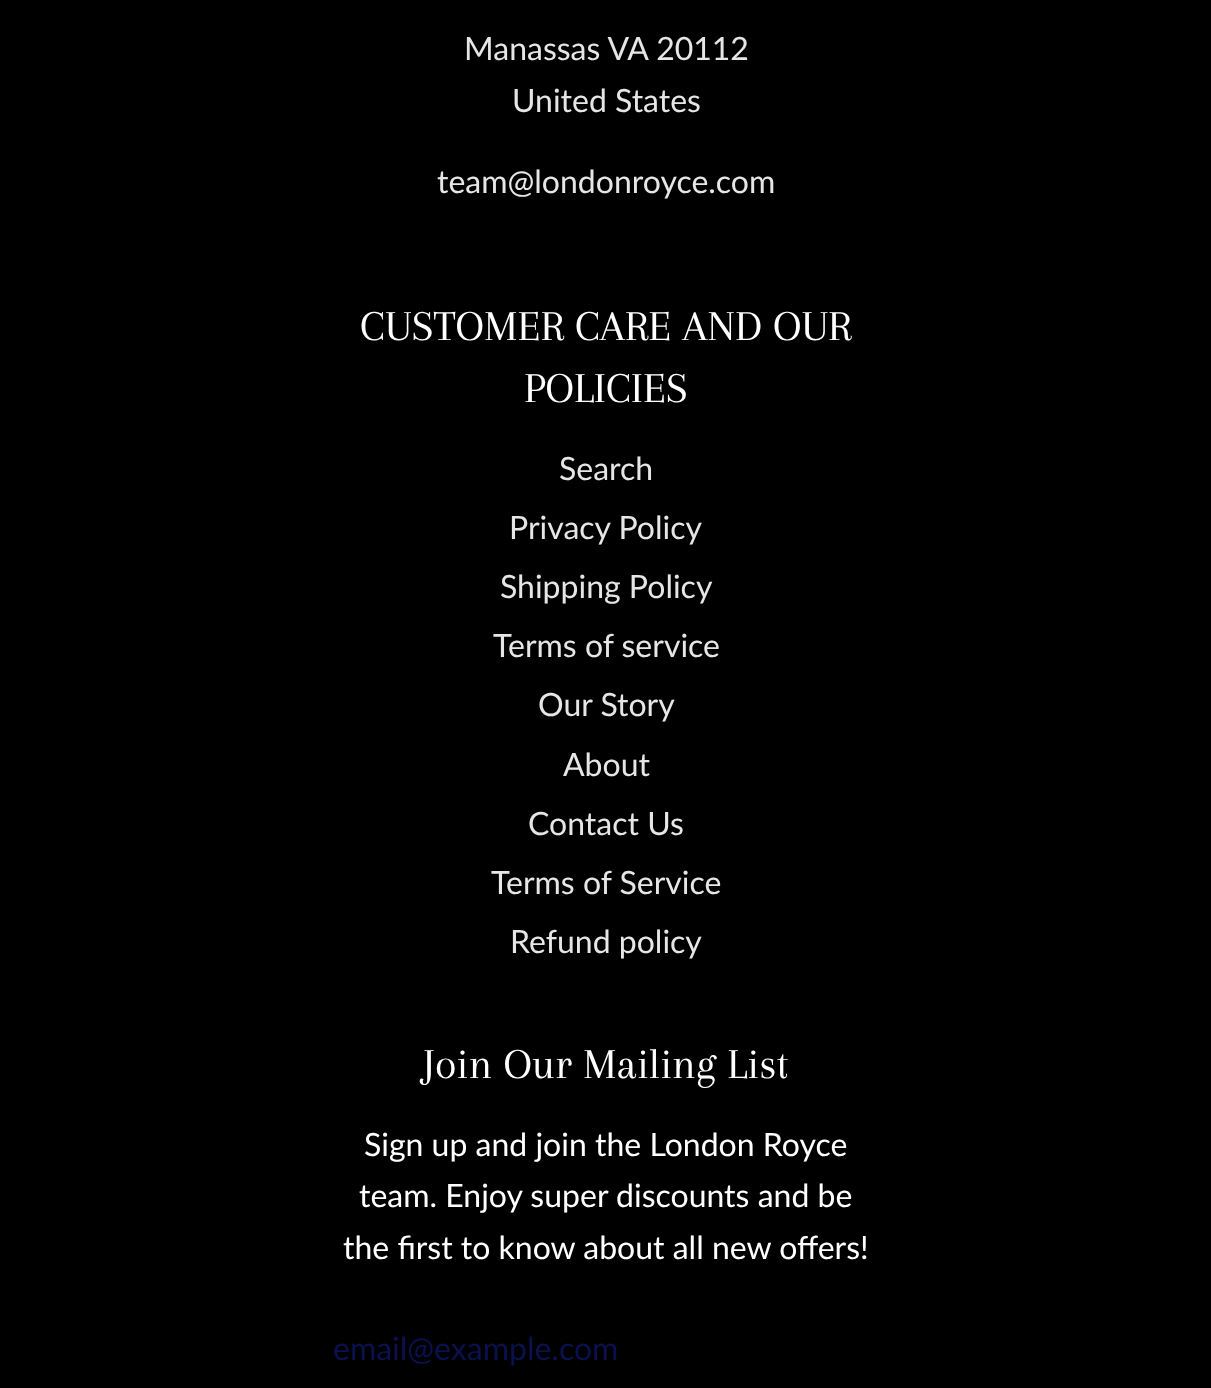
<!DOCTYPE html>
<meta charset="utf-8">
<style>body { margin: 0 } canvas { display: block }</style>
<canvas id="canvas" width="1211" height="1388"></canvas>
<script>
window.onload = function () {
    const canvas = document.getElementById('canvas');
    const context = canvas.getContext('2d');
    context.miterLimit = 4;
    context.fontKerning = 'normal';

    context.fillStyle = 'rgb(0, 0, 0)';
    context.fillRect(0, 0, 1211, 1388);
    context.font = '32px Lato';
    context.fillStyle = 'rgb(230, 230, 230)';
    context.fillText('Manassas VA 20112', 464, 60);
    context.fillText('United States', 512, 112);
    context.fillText('team@londonroyce.com', 437, 193);
    context.font = '44.2px Arapey';
    context.fillStyle = 'rgb(255, 255, 255)';
    context.fillText('CUSTOMER CARE AND OUR', 360, 340);
    context.fillText('POLICIES', 524, 402);
    context.font = '32px Lato';
    context.fillStyle = 'rgb(230, 230, 230)';
    context.fillText('Search', 559, 480);
    context.fillText('Privacy Policy', 509, 539);
    context.fillText('Shipping Policy', 500, 598);
    context.fillText('Terms of service', 493, 657);
    context.fillText('Our Story', 538, 716);
    context.fillText('About', 563, 776);
    context.fillText('Contact Us', 528, 835);
    context.fillText('Terms of Service', 491, 894);
    context.fillText('Refund policy', 510, 953);
    context.font = '44.2px Arapey';
    context.fillStyle = 'rgb(255, 255, 255)';
    context.fillText('Join Our Mailing List', 423, 1078);
    context.font = '32px Lato';
    context.fillText('Sign up and join the London Royce', 364, 1156);
    context.fillText('team. Enjoy super discounts and be', 359, 1207);
    context.fillText('the first to know about all new offers!', 343, 1259);
    context.fillStyle = 'rgb(11, 16, 79)';
    context.fillText('email@example.com', 333, 1360);
};
</script>
